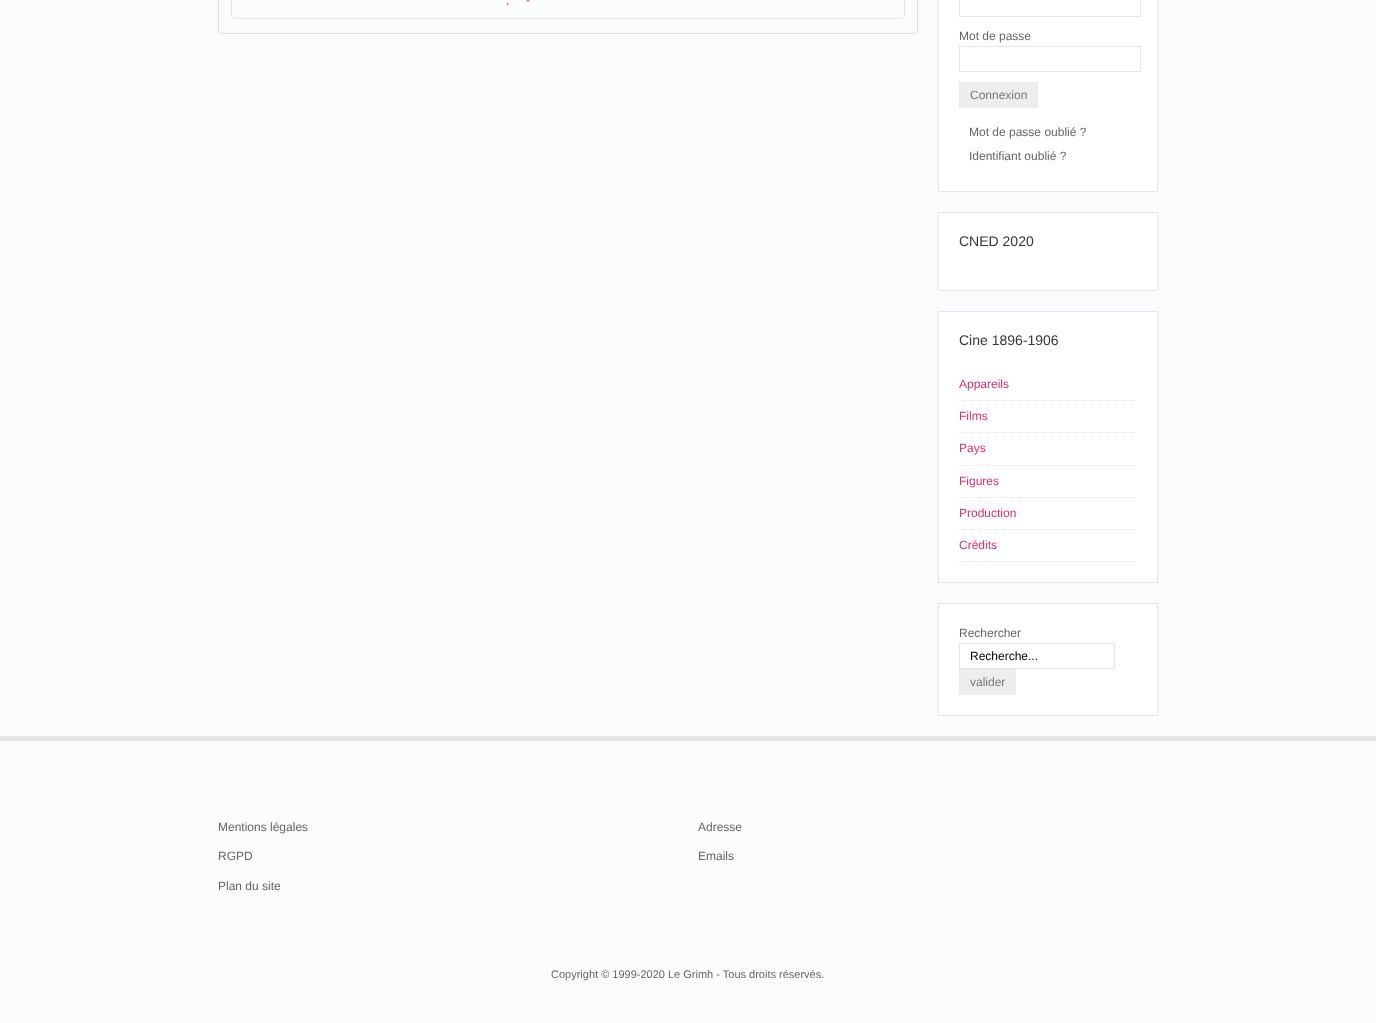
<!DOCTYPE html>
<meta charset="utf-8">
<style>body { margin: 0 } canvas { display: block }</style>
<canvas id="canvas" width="1376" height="1023"></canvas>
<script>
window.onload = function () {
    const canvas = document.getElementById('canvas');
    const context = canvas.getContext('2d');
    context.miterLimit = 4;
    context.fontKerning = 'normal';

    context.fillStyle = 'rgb(250, 251, 252)';
    context.fillRect(0, 0, 1376, 1023);
    context.fillStyle = 'rgb(221, 221, 221)';
    context.beginPath();
    context.moveTo(218, -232);
    context.lineTo(918, -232);
    context.lineTo(918, 30);
    context.bezierCurveTo(918, 32, 916, 34, 914, 34);
    context.lineTo(222, 34);
    context.bezierCurveTo(220, 34, 218, 32, 218, 30);
    context.closePath();
    context.moveTo(219, -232);
    context.lineTo(917, -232);
    context.lineTo(917, 30);
    context.bezierCurveTo(917, 32, 916, 33, 914, 33);
    context.lineTo(222, 33);
    context.bezierCurveTo(220, 33, 219, 32, 219, 30);
    context.closePath();
    context.fill('evenodd');
    context.beginPath();
    context.roundRect(231.5, -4.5, 673, 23, 3.5);
    context.strokeStyle = 'rgb(229, 229, 229)';
    context.stroke();
    context.fillStyle = 'rgb(255, 255, 255)';
    context.beginPath();
    context.rect(938.5, -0.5, 219, 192);
    context.fill();
    context.strokeStyle = 'rgb(229, 230, 231)';
    context.stroke();
    context.strokeRect(959.5, -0.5, 181, 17);
    context.strokeRect(959.5, 46.5, 181, 25);
    context.fillStyle = 'rgb(237, 237, 237)';
    context.fillRect(959, 82, 79, 26);
    context.fillStyle = 'rgb(255, 255, 255)';
    context.beginPath();
    context.rect(938.5, 212.5, 219, 78);
    context.fill();
    context.stroke();
    context.beginPath();
    context.rect(938.5, 311.5, 219, 271);
    context.fill();
    context.stroke();
    context.beginPath();
    context.moveTo(959, 400.5);
    context.lineTo(1137, 400.5);
    context.setLineDash([1, 1]);
    context.stroke();
    context.beginPath();
    context.moveTo(959, 432.5);
    context.lineTo(1137, 432.5);
    context.stroke();
    context.beginPath();
    context.moveTo(959, 465.5);
    context.lineTo(1137, 465.5);
    context.stroke();
    context.beginPath();
    context.moveTo(959, 497.5);
    context.lineTo(1137, 497.5);
    context.stroke();
    context.beginPath();
    context.moveTo(959, 529.5);
    context.lineTo(1137, 529.5);
    context.stroke();
    context.beginPath();
    context.moveTo(959, 561.5);
    context.lineTo(1137, 561.5);
    context.stroke();
    context.beginPath();
    context.rect(938.5, 603.5, 219, 112);
    context.fill();
    context.setLineDash([]);
    context.stroke();
    context.strokeRect(959.5, 643.5, 155, 25);
    context.fillStyle = 'rgb(237, 237, 237)';
    context.fillRect(959, 669, 57, 26);
    context.fillStyle = 'rgb(229, 230, 231)';
    context.fillRect(0, 736, 1376, 5);
    context.font = '12px Liberation Sans';
    context.fillStyle = 'rgb(222, 48, 104)';
    context.fillText('-', 526, 4);
    context.fillText(',', 506, 4);
    context.fillStyle = 'rgb(101, 102, 103)';
    context.fillText('Mot de passe', 959, 40);
    context.fillStyle = 'rgb(119, 119, 119)';
    context.fillText('Connexion', 970, 99);
    context.fillStyle = 'rgb(101, 102, 103)';
    context.fillText('Mot de passe oublié ?', 969, 136);
    context.fillText('Identifiant oublié ?', 969, 160);
    context.font = '14px Liberation Sans';
    context.fillStyle = 'rgb(53, 54, 55)';
    context.fillText('CNED 2020', 959, 246);
    context.fillText('Cine 1896-1906', 959, 345);
    context.font = '12px Liberation Sans';
    context.fillStyle = 'rgb(222, 48, 104)';
    context.fillText('Appareils', 959, 388);
    context.fillText('Films', 959, 420);
    context.fillText('Pays', 959, 452);
    context.fillText('Figures', 959, 485);
    context.fillText('Production', 959, 517);
    context.fillText('Crédits', 959, 549);
    context.fillStyle = 'rgb(101, 102, 103)';
    context.fillText('Rechercher', 959, 637);
    context.fillStyle = 'rgb(0, 0, 0)';
    context.fillText('Recherche...', 970, 660);
    context.fillStyle = 'rgb(119, 119, 119)';
    context.fillText('valider', 970, 686);
    context.fillStyle = 'rgb(101, 102, 103)';
    context.fillText('Mentions légales', 218, 831);
    context.fillText('RGPD', 218, 860);
    context.fillText('Plan du site', 218, 890);
    context.fillText('Adresse', 698, 831);
    context.fillText('Emails', 698, 860);
    context.font = '11px Liberation Sans';
    context.fillText('Copyright © 1999-2020 Le Grimh - Tous droits réservés.', 551, 978);
};
</script>
